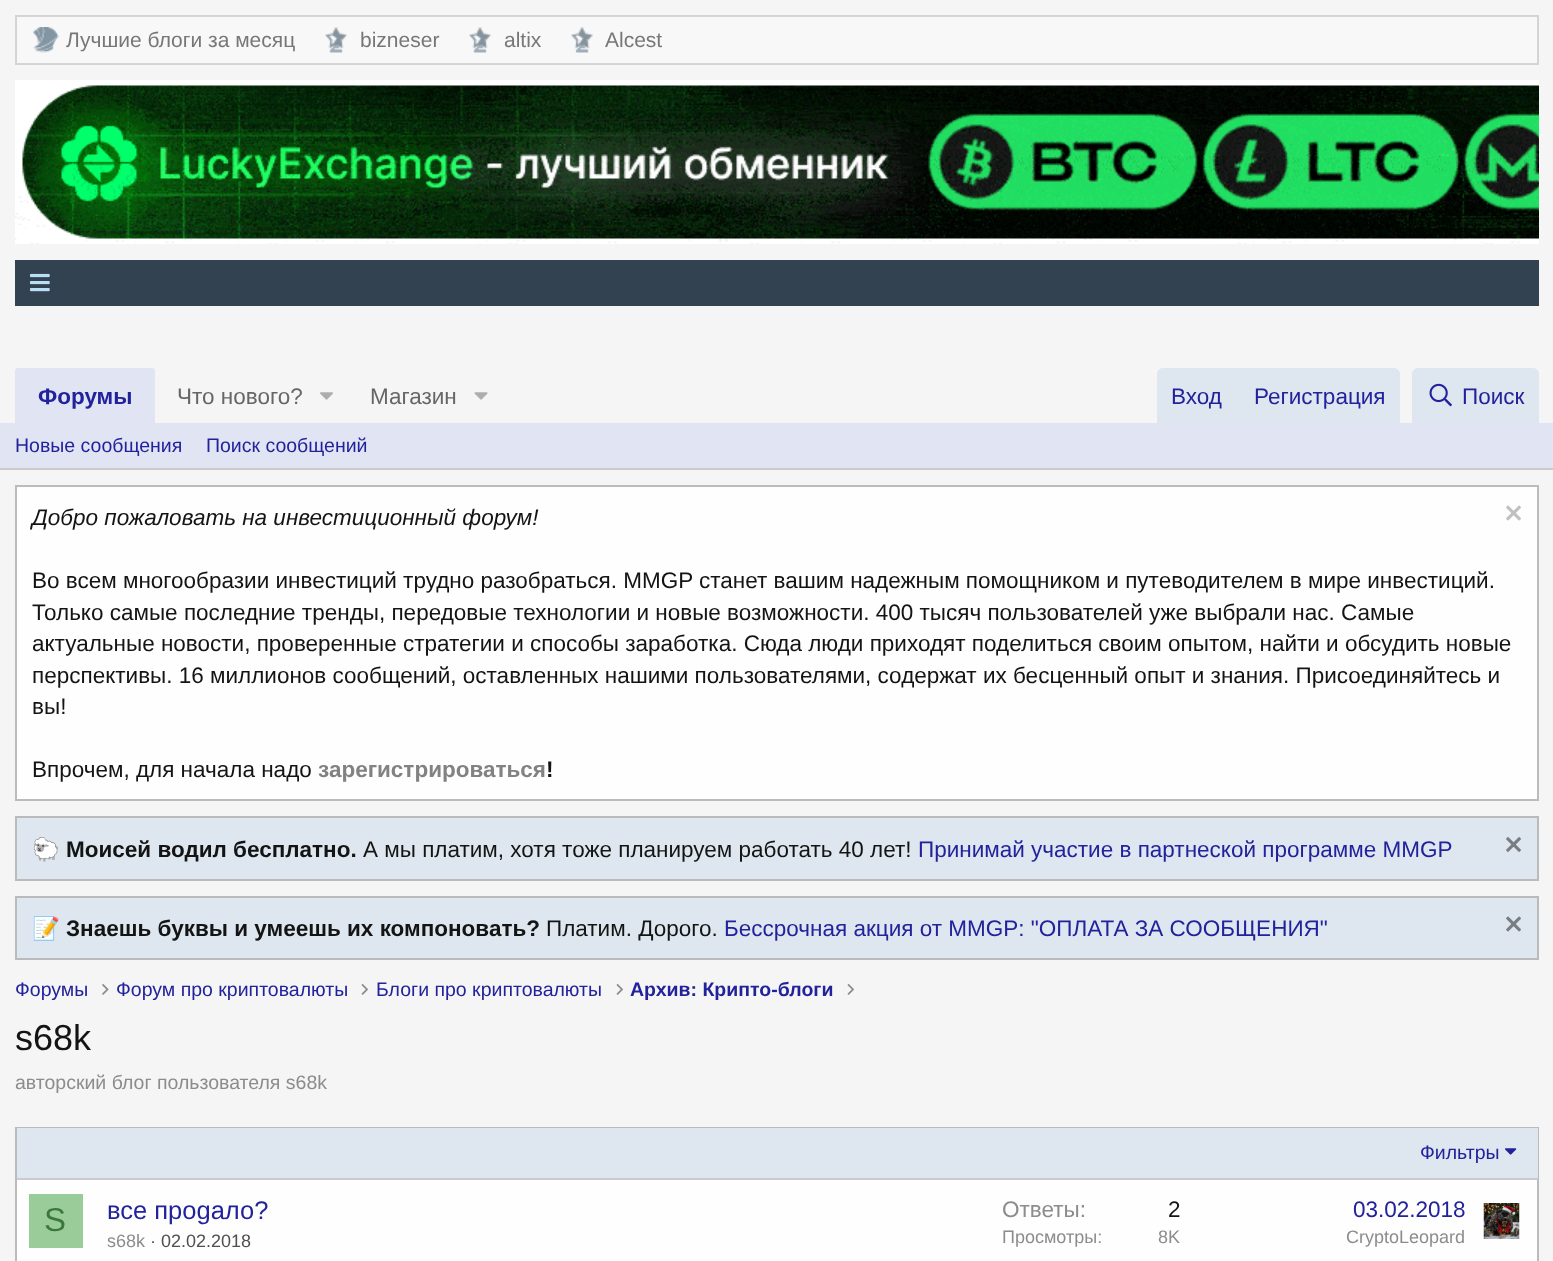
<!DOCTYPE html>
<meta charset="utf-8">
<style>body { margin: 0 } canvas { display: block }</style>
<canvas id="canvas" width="1553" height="1261"></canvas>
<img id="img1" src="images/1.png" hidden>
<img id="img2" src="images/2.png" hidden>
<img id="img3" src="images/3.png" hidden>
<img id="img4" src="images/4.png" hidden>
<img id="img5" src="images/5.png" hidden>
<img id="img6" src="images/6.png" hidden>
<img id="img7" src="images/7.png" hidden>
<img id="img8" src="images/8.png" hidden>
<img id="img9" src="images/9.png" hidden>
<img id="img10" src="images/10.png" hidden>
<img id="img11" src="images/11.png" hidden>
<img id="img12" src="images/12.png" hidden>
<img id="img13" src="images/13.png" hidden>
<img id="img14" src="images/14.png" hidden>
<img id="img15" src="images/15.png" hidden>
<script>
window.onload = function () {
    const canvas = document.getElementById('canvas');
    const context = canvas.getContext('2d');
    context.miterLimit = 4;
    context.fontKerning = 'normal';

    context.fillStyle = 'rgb(245, 245, 245)';
    context.fillRect(0, 0, 1553, 1261);
    context.fillStyle = 'rgb(248, 248, 248)';
    context.beginPath();
    context.rect(16, 16, 1522, 48);
    context.fill();
    context.strokeStyle = 'rgb(212, 212, 212)';
    context.lineWidth = 2;
    context.stroke();
    context.drawImage(document.getElementById('img1'), 33, 27, 26, 26);
    context.drawImage(document.getElementById('img2'), 325, 27, 22, 26);
    context.drawImage(document.getElementById('img2'), 469, 27, 22, 26);
    context.drawImage(document.getElementById('img3'), 571, 27, 22, 26);
    context.drawImage(document.getElementById('img4'), 15, 80, 1524, 164);
    context.fillStyle = 'rgb(50, 66, 81)';
    context.fillRect(15, 260, 1524, 46);
    context.drawImage(document.getElementById('img5'), 30, 273, 20, 19);
    context.fillStyle = 'rgb(225, 228, 242)';
    context.beginPath();
    context.roundRect(15, 368, 140, 55, [3, 3, 0, 0]);
    context.fill();
    context.drawImage(document.getElementById('img6'), 320, 392, 13, 8);
    context.drawImage(document.getElementById('img7'), 474, 392, 14, 8);
    context.fillStyle = 'rgb(222, 231, 239)';
    context.beginPath();
    context.roundRect(1157, 368, 243, 55, [6, 6, 0, 0]);
    context.fill();
    context.beginPath();
    context.roundRect(1412, 368, 127, 55, [6, 6, 0, 0]);
    context.fill();
    context.drawImage(document.getElementById('img8'), 1429, 383, 23, 24);
    context.fillStyle = 'rgb(225, 228, 242)';
    context.fillRect(0, 423, 1553, 45);
    context.fillStyle = 'rgb(203, 203, 203)';
    context.fillRect(0, 468, 1553, 2);
    context.fillStyle = 'rgb(254, 254, 254)';
    context.beginPath();
    context.rect(16, 486, 1522, 314);
    context.fill();
    context.strokeStyle = 'rgb(187, 187, 187)';
    context.stroke();
    context.drawImage(document.getElementById('img9'), 1506, 505, 15, 16);
    context.fillStyle = 'rgb(222, 231, 239)';
    context.beginPath();
    context.rect(16, 817, 1522, 63);
    context.fill();
    context.stroke();
    context.drawImage(document.getElementById('img10'), 1506, 837, 15, 15);
    context.beginPath();
    context.rect(16, 897, 1522, 62);
    context.fill();
    context.stroke();
    context.drawImage(document.getElementById('img11'), 1506, 916, 15, 16);
    context.drawImage(document.getElementById('img12'), 102, 984, 7, 11);
    context.drawImage(document.getElementById('img13'), 361, 984, 7, 11);
    context.drawImage(document.getElementById('img13'), 616, 984, 7, 11);
    context.drawImage(document.getElementById('img13'), 847, 984, 7, 11);
    context.fillStyle = 'rgb(254, 254, 254)';
    context.fillRect(17, 1180, 1520, 81);
    context.strokeRect(16, 1128, 1522, 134);
    context.fillStyle = 'rgb(222, 231, 239)';
    context.fillRect(17, 1128, 1521, 50);
    context.fillStyle = 'rgb(203, 203, 203)';
    context.fillRect(17, 1178, 1521, 2);
    context.drawImage(document.getElementById('img14'), 1505, 1148, 12, 7);
    context.fillStyle = 'rgb(153, 204, 153)';
    context.fillRect(29, 1194, 54, 54);
    context.drawImage(document.getElementById('img15'), 1483, 1203, 37, 36);
    context.font = '21px Liberation Sans';
    context.fillStyle = 'rgb(119, 119, 119)';
    context.fillText('Лучшие блоги за месяц', 66, 47);
    context.fillText('bizneser', 360, 47);
    context.fillText('altix', 504, 47);
    context.fillText('Alcest', 605, 47);
    context.font = 'bold 22.5px Liberation Sans';
    context.fillStyle = 'rgb(34, 34, 156)';
    context.fillText('Форумы', 38, 404);
    context.font = '22.5px Liberation Sans';
    context.fillStyle = 'rgb(102, 102, 102)';
    context.fillText('Что нового?', 177, 404);
    context.fillText('Магазин', 370, 404);
    context.fillStyle = 'rgb(34, 34, 156)';
    context.fillText('Вход', 1171, 404);
    context.fillText('Регистрация', 1254, 404);
    context.fillText('Поиск', 1462, 404);
    context.font = '19.5px Liberation Sans';
    context.fillText('Новые сообщения', 15, 452);
    context.fillText('Поиск сообщений', 206, 452);
    context.font = 'italic 22.5px Liberation Sans';
    context.fillStyle = 'rgb(20, 20, 20)';
    context.fillText('Добро пожаловать на инвестиционный форум!', 32, 525);
    context.font = '22.5px Liberation Sans';
    context.fillText('Во всем многообразии инвестиций трудно разобраться. MMGP станет вашим надежным помощником и путеводителем в мире инвестиций.', 32, 588);
    context.fillText('Только самые последние тренды, передовые технологии и новые возможности. 400 тысяч пользователей уже выбрали нас. Самые', 32, 620);
    context.fillText('актуальные новости, проверенные стратегии и способы заработка. Сюда люди приходят поделиться своим опытом, найти и обсудить новые', 32, 651);
    context.fillText('перспективы. 16 миллионов сообщений, оставленных нашими пользователями, содержат их бесценный опыт и знания. Присоединяйтесь и', 32, 683);
    context.fillText('вы!', 32, 714);
    context.fillText('Впрочем, для начала надо', 32, 777);
    context.font = 'bold 22.5px Liberation Sans';
    context.fillStyle = 'rgb(130, 130, 130)';
    context.fillText('зарегистрироваться', 318, 777);
    context.fillStyle = 'rgb(20, 20, 20)';
    context.fillText('!', 546, 777);
    context.font = '22.5px Noto Color Emoji';
    context.fillText('🐑', 32, 857);
    context.font = 'bold 22.5px Liberation Sans';
    context.fillText('Моисей водил бесплатно.', 66, 857);
    context.font = '22.5px Liberation Sans';
    context.fillText('А мы платим, хотя тоже планируем работать 40 лет!', 363, 857);
    context.fillStyle = 'rgb(34, 34, 156)';
    context.fillText('Принимай участие в партнеской программе MMGP', 918, 857);
    context.font = '22.5px Noto Color Emoji';
    context.fillStyle = 'rgb(20, 20, 20)';
    context.fillText('📝', 32, 936);
    context.font = 'bold 22.5px Liberation Sans';
    context.fillText('Знаешь буквы и умеешь их компоновать?', 66, 936);
    context.font = '22.5px Liberation Sans';
    context.fillText('Платим. Дорого.', 546, 936);
    context.fillStyle = 'rgb(34, 34, 156)';
    context.fillText('Бессрочная акция от MMGP: "ОПЛАТА ЗА СООБЩЕНИЯ"', 724, 936);
    context.font = '19.5px Liberation Sans';
    context.fillText('Форумы', 15, 996);
    context.fillText('Форум про криптовалюты', 116, 996);
    context.fillText('Блоги про криптовалюты', 376, 996);
    context.font = 'bold 19.5px Liberation Sans';
    context.fillText('Архив: Крипто-блоги', 630, 996);
    context.font = '36px Liberation Sans';
    context.fillStyle = 'rgb(20, 20, 20)';
    context.fillText('s68k', 15, 1050);
    context.font = '19.5px Liberation Sans';
    context.fillStyle = 'rgb(140, 140, 140)';
    context.fillText('авторский блог пользователя s68k', 15, 1089);
    context.fillStyle = 'rgb(34, 34, 156)';
    context.fillText('Фильтры', 1420, 1159);
    context.font = '33px Liberation Sans';
    context.fillStyle = 'rgb(60, 119, 60)';
    context.fillText('S', 44, 1231);
    context.font = '25.5px Liberation Sans';
    context.fillStyle = 'rgb(34, 34, 156)';
    context.fillText('все проgало?', 107, 1219);
    context.font = '18px Liberation Sans';
    context.fillStyle = 'rgb(140, 140, 140)';
    context.fillText('s68k', 107, 1247);
    context.fillStyle = 'rgb(80, 80, 80)';
    context.fillText('· 02.02.2018', 150, 1247);
    context.font = '22.5px Liberation Sans';
    context.fillStyle = 'rgb(140, 140, 140)';
    context.fillText('Ответы:', 1002, 1217);
    context.fillStyle = 'rgb(20, 20, 20)';
    context.fillText('2', 1168, 1217);
    context.font = '18px Liberation Sans';
    context.fillStyle = 'rgb(140, 140, 140)';
    context.fillText('Просмотры:', 1002, 1243);
    context.fillText('8K', 1158, 1243);
    context.font = '22.5px Liberation Sans';
    context.fillStyle = 'rgb(34, 34, 156)';
    context.fillText('03.02.2018', 1353, 1217);
    context.font = '18px Liberation Sans';
    context.fillStyle = 'rgb(140, 140, 140)';
    context.fillText('CryptoLeopard', 1346, 1243);
};
</script>
